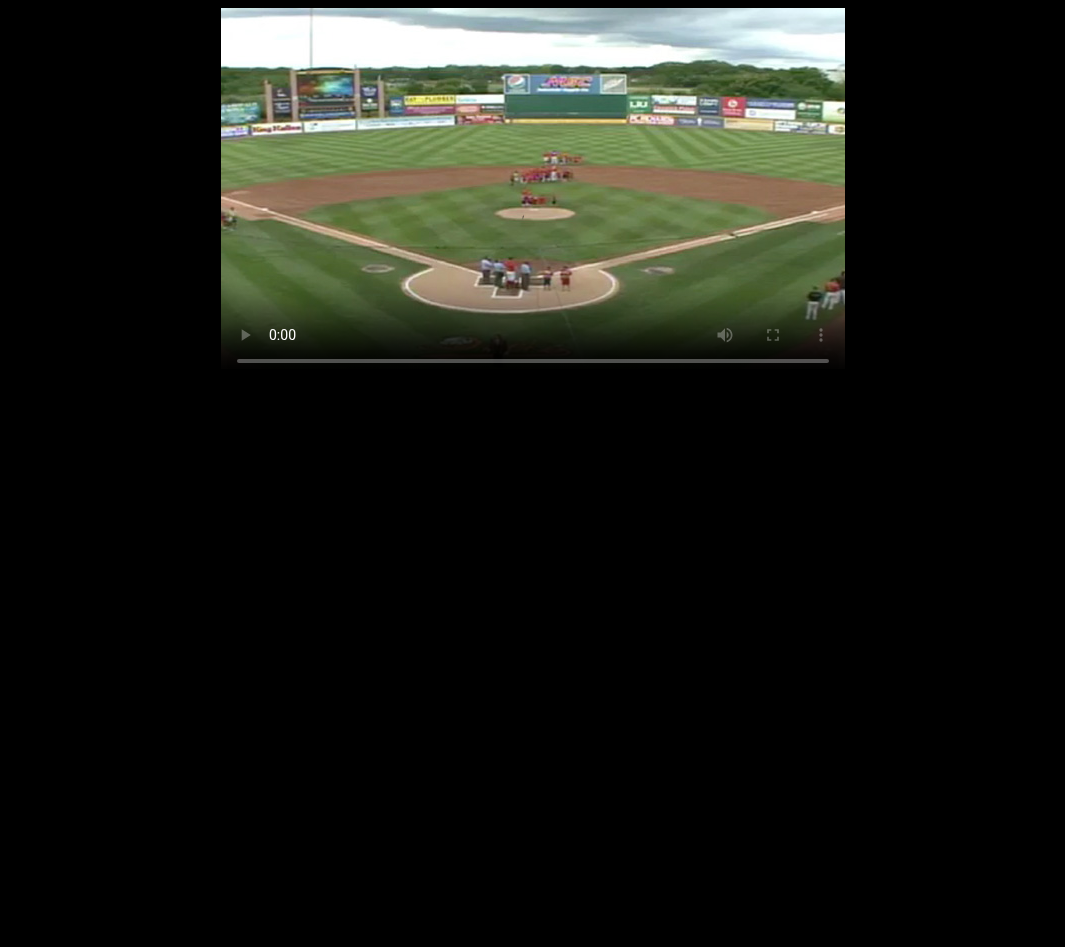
<!DOCTYPE html>
<meta charset="utf-8">
<style>body { margin: 0 } canvas { display: block }</style>
<canvas id="canvas" width="1065" height="947"></canvas>
<img id="img1" src="images/1.png" hidden>
<script>
window.onload = function () {
    const canvas = document.getElementById('canvas');
    const context = canvas.getContext('2d');
    context.miterLimit = 4;
    context.fontKerning = 'normal';

    context.fillStyle = 'rgb(0, 0, 0)';
    context.fillRect(0, 0, 1065, 947);
    context.drawImage(document.getElementById('img1'), 221, 8, 624, 361);
};
</script>
